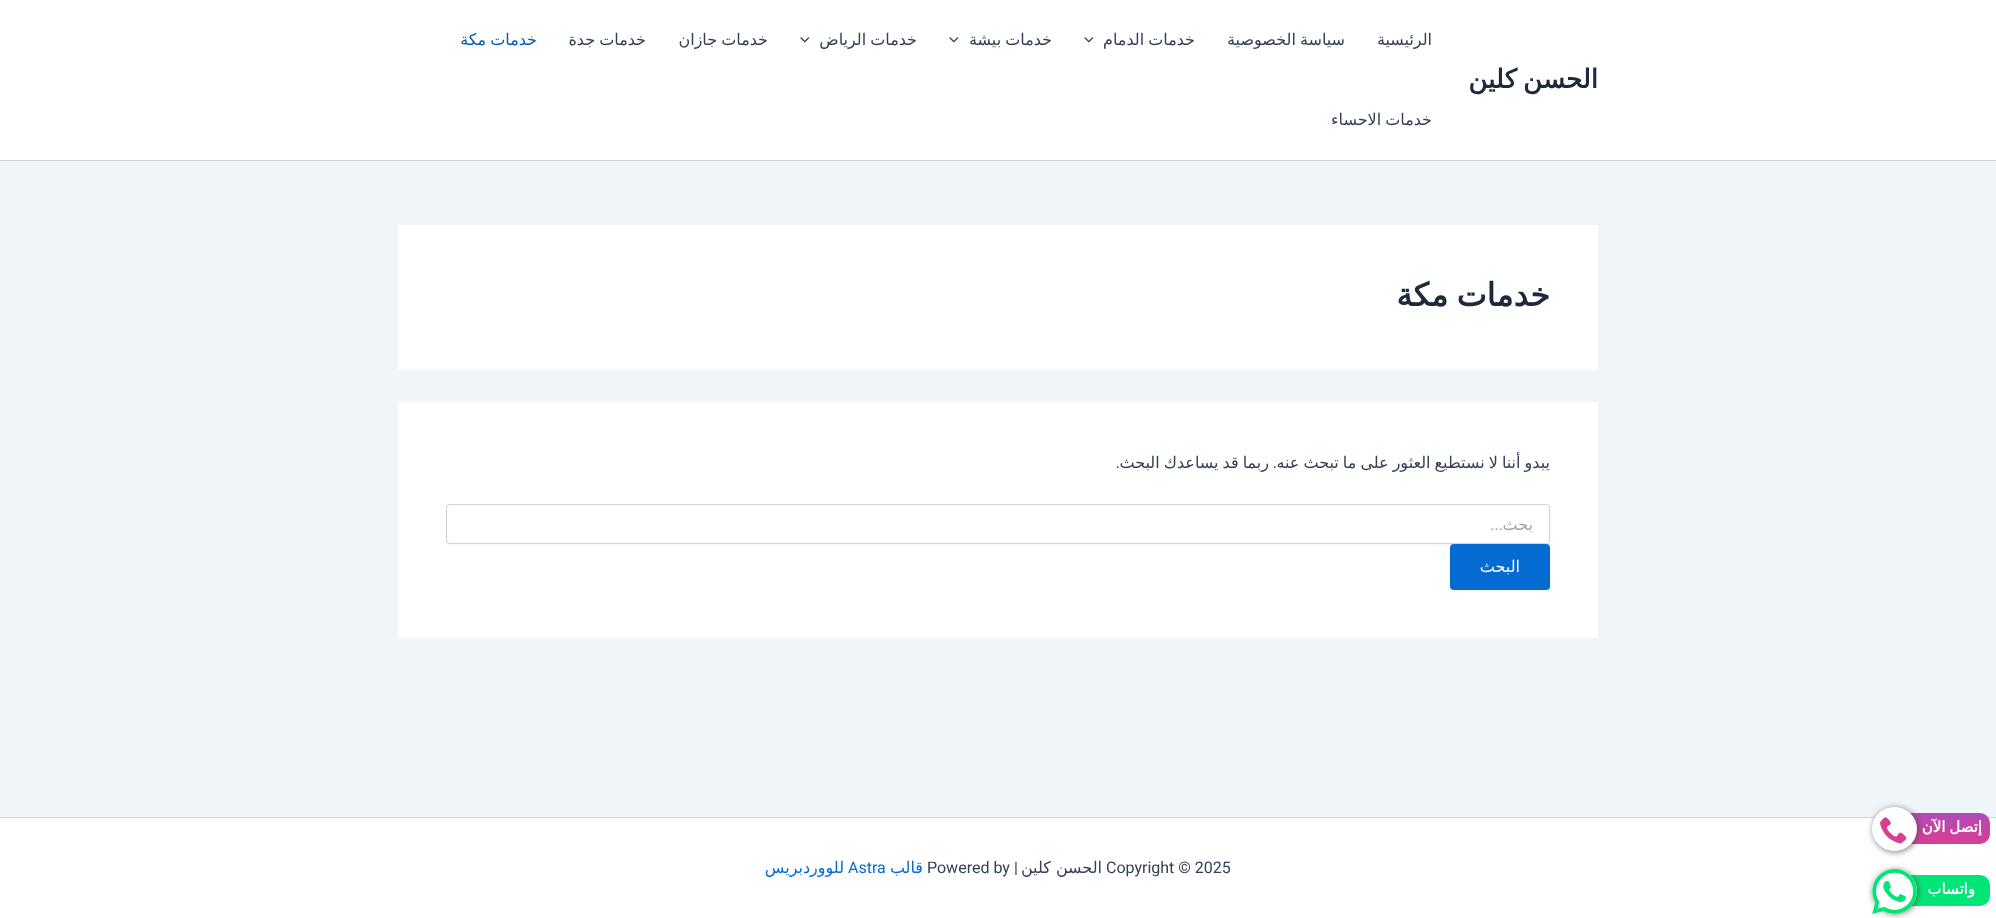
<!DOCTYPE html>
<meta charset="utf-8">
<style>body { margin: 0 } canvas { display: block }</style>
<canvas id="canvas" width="1996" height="918"></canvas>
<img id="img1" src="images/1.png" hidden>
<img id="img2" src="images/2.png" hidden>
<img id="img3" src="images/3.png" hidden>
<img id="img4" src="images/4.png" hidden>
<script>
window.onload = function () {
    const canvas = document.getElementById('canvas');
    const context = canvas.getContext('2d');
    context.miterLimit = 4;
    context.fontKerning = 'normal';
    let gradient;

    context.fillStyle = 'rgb(240, 245, 250)';
    context.fillRect(0, 0, 1996, 918);
    context.fillStyle = 'rgb(255, 255, 255)';
    context.fillRect(0, 818, 1996, 100);
    context.fillStyle = 'rgb(209, 213, 219)';
    context.fillRect(0, 817, 1996, 1);
    gradient = context.createLinearGradient(1946, 844, 1946, 813);
    gradient.addColorStop(0, 'rgb(216, 63, 145)');
    gradient.addColorStop(0.25, 'rgb(208, 64, 155)');
    gradient.addColorStop(0.5, 'rgb(199, 67, 165)');
    gradient.addColorStop(0.75, 'rgb(187, 71, 175)');
    gradient.addColorStop(1, 'rgb(174, 75, 184)');
    context.fillStyle = gradient;
    context.beginPath();
    context.roundRect(1902, 813, 88, 31, 10);
    context.fill();
    context.fillStyle = 'rgba(68, 68, 68, 0.71)';
    context.filter = 'blur(3px)';
    context.beginPath();
    context.roundRect(1873, 808, 45, 44, 22);
    context.fill();
    context.filter = 'none';
    context.fillStyle = 'rgb(255, 255, 255)';
    context.beginPath();
    context.roundRect(1872, 807, 45, 44, 22);
    context.fill();
    context.drawImage(document.getElementById('img1'), 1880, 817, 27, 27);
    context.fillStyle = 'rgb(0, 230, 118)';
    context.beginPath();
    context.roundRect(1902, 875, 88, 31, 10);
    context.fill();
    context.fillStyle = 'rgba(68, 68, 68, 0.71)';
    context.filter = 'blur(3px)';
    context.beginPath();
    context.roundRect(1873, 870, 45, 44, 22);
    context.fill();
    context.filter = 'none';
    context.fillStyle = 'rgb(255, 255, 255)';
    context.beginPath();
    context.roundRect(1872, 869, 45, 44, 22);
    context.fill();
    context.drawImage(document.getElementById('img2'), 1872, 869, 45, 45);
    context.fillRect(0, 0, 1996, 160);
    context.fillStyle = 'rgb(209, 213, 219)';
    context.fillRect(0, 160, 1996, 1);
    context.drawImage(document.getElementById('img3'), 1084, 37, 9, 6);
    context.drawImage(document.getElementById('img4'), 949, 37, 10, 6);
    context.drawImage(document.getElementById('img4'), 800, 37, 10, 6);
    context.fillStyle = 'rgb(255, 255, 255)';
    context.fillRect(398, 225, 1200, 145);
    context.fillRect(398, 402, 1200, 236);
    context.fillStyle = 'rgba(0, 0, 0, 0.05)';
    context.filter = 'blur(1px)';
    context.beginPath();
    context.roundRect(446, 505, 1104, 40, 4);
    context.fill();
    context.filter = 'none';
    context.fillStyle = 'rgb(255, 255, 255)';
    context.beginPath();
    context.roundRect(446.5, 504.5, 1103, 39, 3.5);
    context.fill();
    context.strokeStyle = 'rgb(209, 213, 219)';
    context.stroke();
    context.fillStyle = 'rgba(0, 0, 0, 0.05)';
    context.filter = 'blur(1px)';
    context.beginPath();
    context.roundRect(1450, 545, 100, 46, 4);
    context.fill();
    context.filter = 'none';
    context.fillStyle = 'rgb(4, 107, 210)';
    context.beginPath();
    context.roundRect(1450, 544, 100, 46, 4);
    context.fill();
    context.wordSpacing = '-1px';
    context.direction = 'rtl';
    context.font = 'bold 15px DejaVu Sans';
    context.fillStyle = 'rgb(255, 255, 255)';
    context.fillText('إتصل الآن', 1982, 832);
    context.wordSpacing = '0px';
    context.fillText('واتساب', 1975, 894);
    context.wordSpacing = '-2px';
    context.font = 'bold 26px DejaVu Sans';
    context.fillStyle = 'rgb(30, 41, 59)';
    context.fillText('الحسن كلين', 1598, 88);
    context.wordSpacing = '0px';
    context.font = '16px DejaVu Sans';
    context.fillStyle = 'rgb(51, 65, 85)';
    context.fillText('الرئيسية', 1432, 45);
    context.wordSpacing = '-1px';
    context.fillText('سياسة الخصوصية', 1345, 45);
    context.fillText('خدمات الدمام', 1195, 45);
    context.fillText('خدمات بيشة', 1052, 45);
    context.fillText('خدمات الرياض', 917, 45);
    context.fillText('خدمات جازان', 768, 45);
    context.fillText('خدمات جدة', 646, 45);
    context.fillStyle = 'rgb(4, 92, 180)';
    context.fillText('خدمات مكة', 537, 45);
    context.fillStyle = 'rgb(51, 65, 85)';
    context.fillText('خدمات الاحساء', 1432, 125);
    context.wordSpacing = '-2px';
    context.font = 'bold 32px DejaVu Sans';
    context.fillStyle = 'rgb(30, 41, 59)';
    context.fillText('خدمات مكة', 1550, 306);
    context.wordSpacing = '-1px';
    context.font = '16px DejaVu Sans';
    context.fillStyle = 'rgb(51, 65, 85)';
    context.fillText('يبدو أننا لا نستطيع العثور على ما تبحث عنه', 1550, 468);
    context.wordSpacing = '0px';
    context.font = '16px Roboto';
    context.fillText('.', 1277, 468);
    context.wordSpacing = '-1px';
    context.font = '16px DejaVu Sans';
    context.fillText('ربما قد يساعدك البحث', 1269, 468);
    context.wordSpacing = '0px';
    context.font = '16px Roboto';
    context.fillText('.', 1120, 468);
    context.font = '16px DejaVu Sans';
    context.fillStyle = 'rgb(156, 163, 175)';
    context.fillText('بحث', 1533, 530);
    context.font = '16px Roboto';
    context.fillText('...', 1503, 530);
    context.font = '16px DejaVu Sans';
    context.fillStyle = 'rgb(255, 255, 255)';
    context.fillText('البحث', 1520, 572);
    context.direction = 'ltr';
    context.font = '16px Roboto';
    context.fillStyle = 'rgb(51, 65, 85)';
    context.fillText('Copyright © 2025', 1106, 873);
    context.direction = 'rtl';
    context.font = '16px DejaVu Sans';
    context.fillText('الحسن كلين', 1102, 873);
    context.font = '16px Roboto';
    context.fillText('|', 1018, 873);
    context.direction = 'ltr';
    context.fillText('Powered by', 927, 873);
    context.direction = 'rtl';
    context.font = '16px DejaVu Sans';
    context.fillStyle = 'rgb(4, 107, 210)';
    context.fillText('قالب', 923, 873);
    context.direction = 'ltr';
    context.font = '16px Roboto';
    context.fillText('Astra', 848, 873);
    context.direction = 'rtl';
    context.font = '16px DejaVu Sans';
    context.fillText('للووردبريس', 844, 873);
};
</script>
